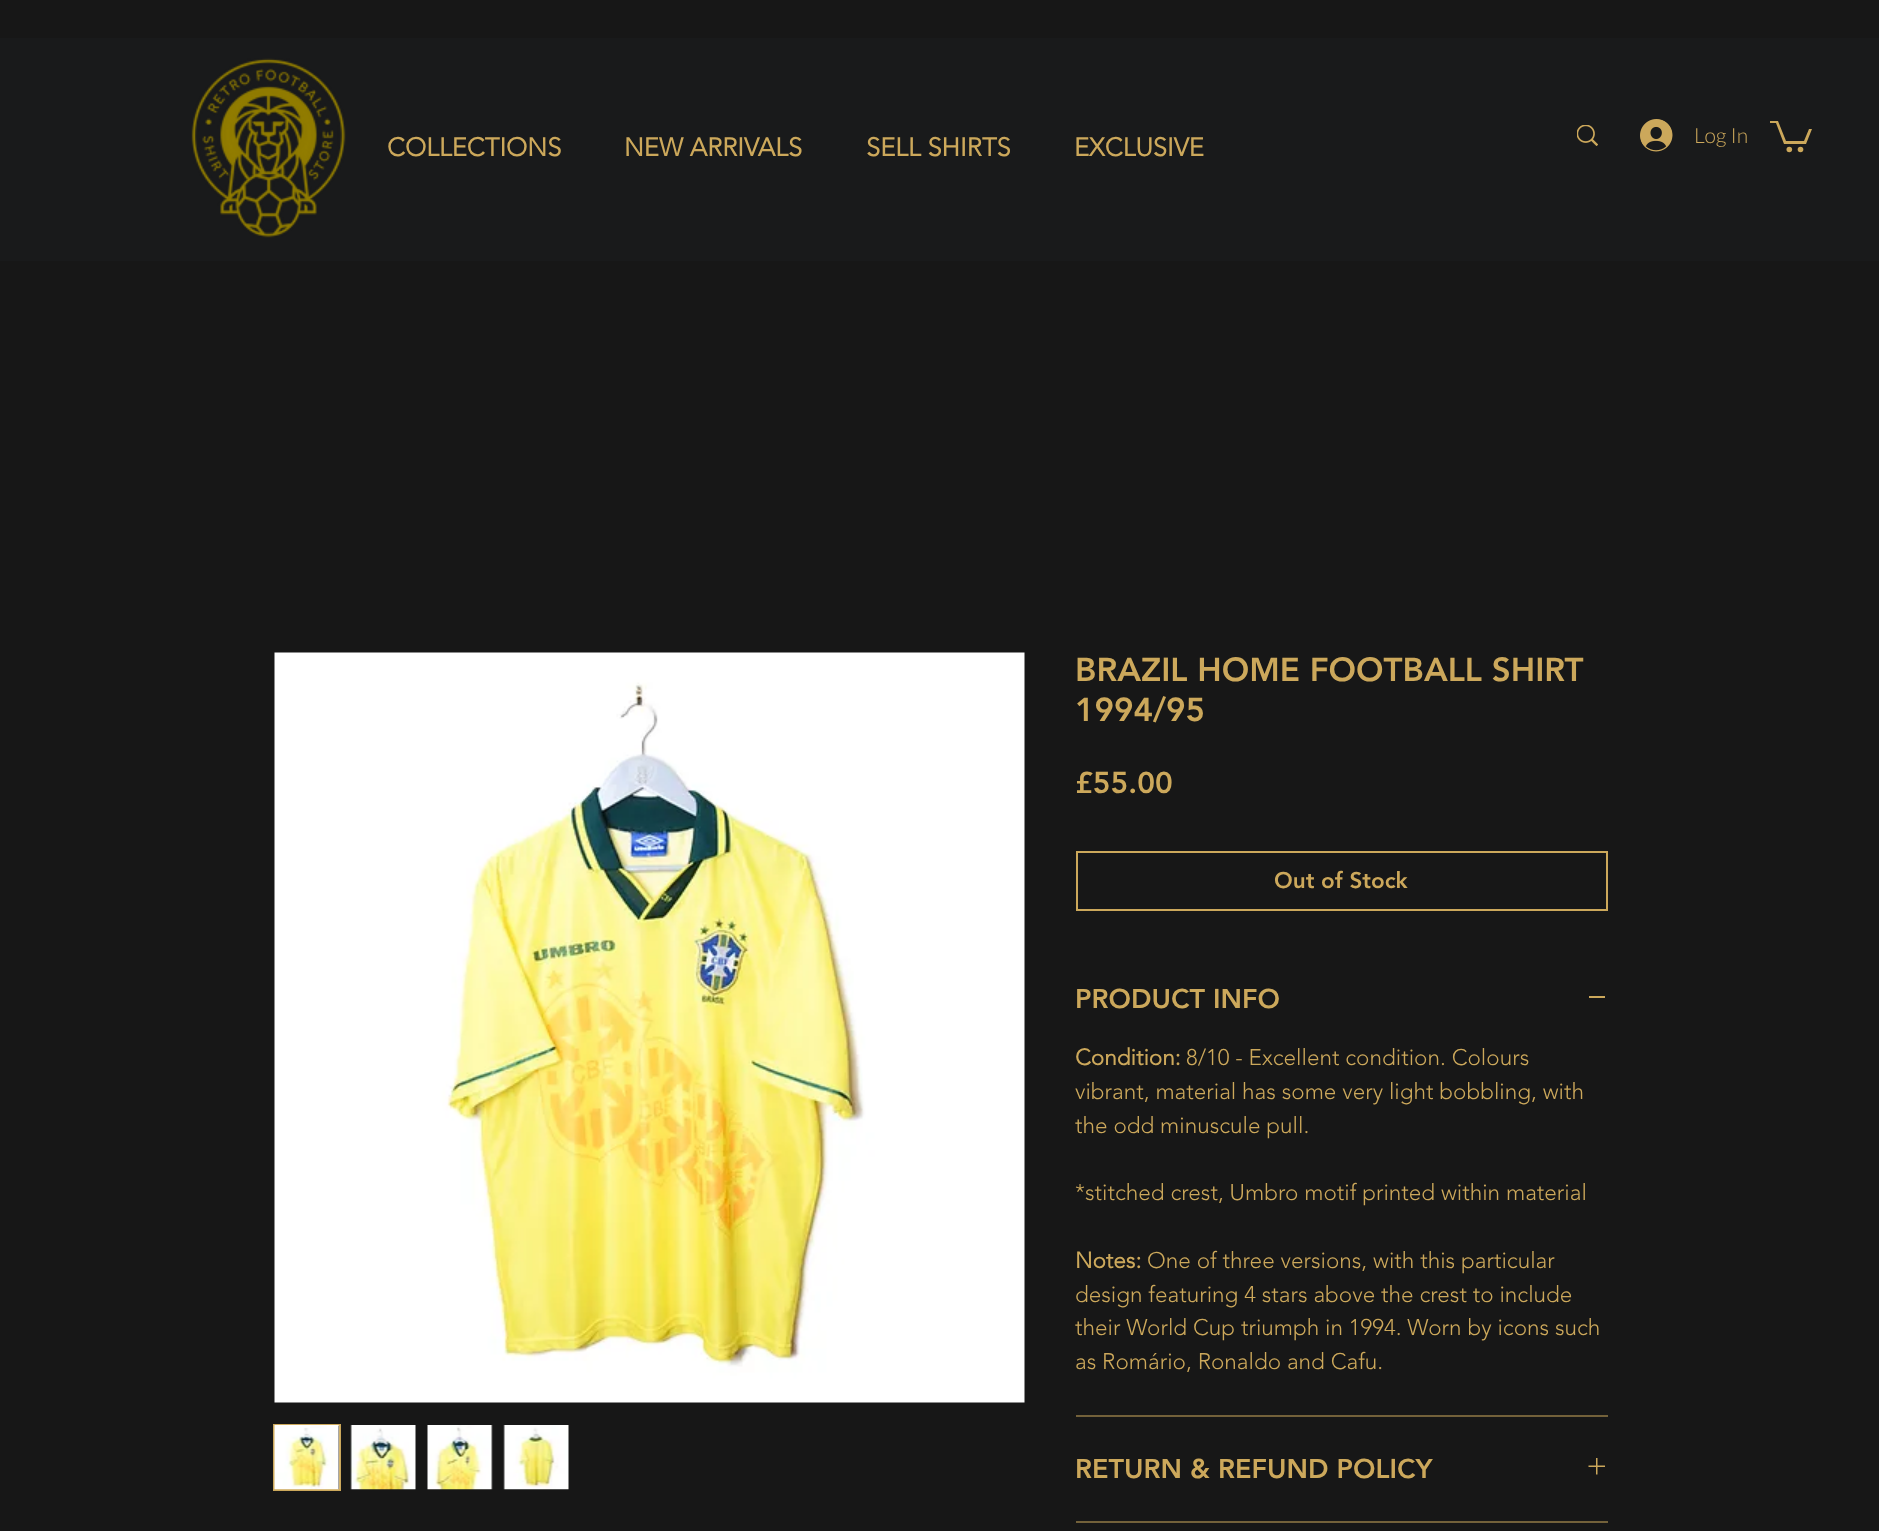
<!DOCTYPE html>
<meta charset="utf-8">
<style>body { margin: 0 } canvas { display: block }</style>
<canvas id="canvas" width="1879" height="1531"></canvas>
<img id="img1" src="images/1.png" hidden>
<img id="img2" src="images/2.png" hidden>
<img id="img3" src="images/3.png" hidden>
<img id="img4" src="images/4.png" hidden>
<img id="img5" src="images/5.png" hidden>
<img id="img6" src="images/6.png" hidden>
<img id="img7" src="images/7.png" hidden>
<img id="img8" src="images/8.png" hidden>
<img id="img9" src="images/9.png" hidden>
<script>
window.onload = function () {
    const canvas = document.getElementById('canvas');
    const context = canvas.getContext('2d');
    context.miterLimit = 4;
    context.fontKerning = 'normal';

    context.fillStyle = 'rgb(23, 23, 23)';
    context.fillRect(0, 0, 1879, 1531);
    context.fillStyle = 'rgb(25, 26, 27)';
    context.fillRect(0, 38, 1879, 223);
    context.drawImage(document.getElementById('img1'), 191, 58, 155, 180);
    context.drawImage(document.getElementById('img2'), 1577, 125, 21, 21);
    context.drawImage(document.getElementById('img3'), 1640, 119, 33, 33);
    context.fillStyle = 'rgb(204, 168, 91)';
    context.beginPath();
    context.moveTo(1812, 129);
    context.lineTo(1806, 144);
    context.lineTo(1784, 144);
    context.lineTo(1776, 123);
    context.lineTo(1770, 123);
    context.lineTo(1770, 121);
    context.lineTo(1778, 121);
    context.lineTo(1786, 141);
    context.lineTo(1804, 141);
    context.lineTo(1809, 129);
    context.fill();
    context.beginPath();
    context.arc(1800.5, 149.5, 2.8, 0, 2 * Math.PI);
    context.fill();
    context.beginPath();
    context.arc(1789.3, 149.5, 2.8, 0, 2 * Math.PI);
    context.fill();
    context.drawImage(document.getElementById('img4'), 274, 652, 751, 751);
    context.strokeStyle = 'rgb(204, 168, 91)';
    context.lineWidth = 2;
    context.strokeRect(274, 1425, 66, 65);
    context.drawImage(document.getElementById('img5'), 274, 1425, 66, 65);
    context.drawImage(document.getElementById('img6'), 350, 1425, 66, 65);
    context.drawImage(document.getElementById('img7'), 427, 1425, 66, 65);
    context.drawImage(document.getElementById('img8'), 503, 1425, 66, 65);
    context.strokeRect(1077, 852, 530, 58);
    context.fillStyle = 'rgb(115, 97, 58)';
    context.fillRect(1076, 1415, 532, 2);
    context.fillStyle = 'rgb(204, 168, 91)';
    context.fillRect(1589, 996, 16, 2);
    context.fillStyle = 'rgb(115, 97, 58)';
    context.fillRect(1076, 1521, 532, 2);
    context.drawImage(document.getElementById('img9'), 1588, 1458, 17, 17);
    context.font = 'bold 25.5px "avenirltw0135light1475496"';
    context.fillStyle = 'rgb(204, 168, 91)';
    context.fillText('COLLECTIONS', 387, 156);
    context.fillText('NEW ARRIVALS', 624, 156);
    context.fillText('SELL SHIRTS', 866, 156);
    context.fillText('EXCLUSIVE', 1074, 156);
    context.font = '300 21px Lato';
    context.fillText('Log In', 1694, 143);
    context.font = '900 33px "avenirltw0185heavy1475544"';
    context.fillText('BRAZIL HOME FOOTBALL SHIRT', 1075, 681);
    context.fillText('1994/95', 1075, 721);
    context.font = '900 30px "avenirltw0185heavy1475544"';
    context.fillText('£55.00', 1075, 793);
    context.font = '900 22.5px "avenirltw0185heavy1475544"';
    context.fillText('Out of Stock', 1274, 888);
    context.font = '900 27px "avenirltw0185heavy1475544"';
    context.fillText('PRODUCT INFO', 1075, 1008);
    context.font = 'bold 22.5px "avenirltw0135light1475496"';
    context.fillText('Condition:', 1075, 1065);
    context.font = '300 22.5px "avenirltw0135light1475496"';
    context.fillText('8/10 - Excellent condition. Colours', 1186, 1065);
    context.fillText('vibrant, material has some very light bobbling, with', 1075, 1099);
    context.fillText('the odd minuscule pull.', 1075, 1133);
    context.fillText('*stitched crest, Umbro motif printed within material', 1075, 1200);
    context.font = 'bold 22.5px "avenirltw0135light1475496"';
    context.fillText('Notes:', 1075, 1268);
    context.font = '300 22.5px "avenirltw0135light1475496"';
    context.fillText('One of three versions, with this particular', 1147, 1268);
    context.fillText('design featuring 4 stars above the crest to include', 1075, 1302);
    context.fillText('their World Cup triumph in 1994. Worn by icons such', 1075, 1335);
    context.fillText('as Romário, Ronaldo and Cafu.', 1075, 1369);
    context.font = '900 27px "avenirltw0185heavy1475544"';
    context.fillText('RETURN & REFUND POLICY', 1075, 1478);
};
</script>
